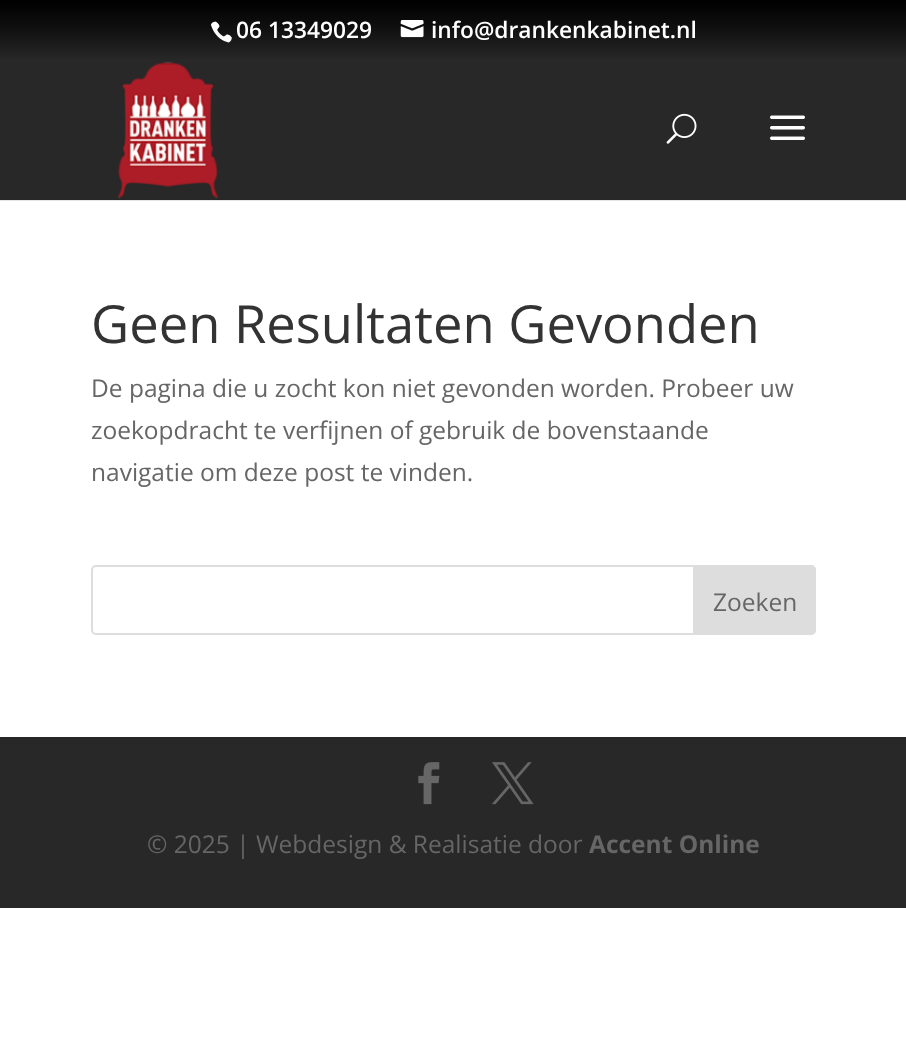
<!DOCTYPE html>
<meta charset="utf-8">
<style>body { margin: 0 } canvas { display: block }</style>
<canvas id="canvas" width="906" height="1060"></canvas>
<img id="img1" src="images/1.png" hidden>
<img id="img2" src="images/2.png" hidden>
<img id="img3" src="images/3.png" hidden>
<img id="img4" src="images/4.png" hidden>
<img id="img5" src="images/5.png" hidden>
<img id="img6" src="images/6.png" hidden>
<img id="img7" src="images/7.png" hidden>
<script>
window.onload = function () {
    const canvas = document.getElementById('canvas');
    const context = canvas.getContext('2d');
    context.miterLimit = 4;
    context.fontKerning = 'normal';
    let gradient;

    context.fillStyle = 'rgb(255, 255, 255)';
    context.fillRect(0, 0, 906, 1060);
    gradient = context.createLinearGradient(453, 0, 453, 60);
    gradient.addColorStop(0, 'rgb(0, 0, 0)');
    gradient.addColorStop(0.5, 'rgb(17, 17, 17)');
    gradient.addColorStop(1, 'rgb(40, 40, 40)');
    context.fillStyle = gradient;
    context.fillRect(0, 0, 906, 60);
    context.drawImage(document.getElementById('img1'), 211, 21, 21, 22);
    context.drawImage(document.getElementById('img2'), 400, 20, 24, 18);
    context.fillStyle = 'rgb(230, 230, 230)';
    context.beginPath();
    context.moveTo(0, 200);
    context.lineTo(0, 201);
    context.lineTo(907, 201);
    context.lineTo(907, 61);
    context.lineTo(906, 61);
    context.lineTo(906, 200);
    context.closePath();
    context.fill();
    context.fillStyle = 'rgb(40, 40, 40)';
    context.fillRect(0, 60, 906, 140);
    context.drawImage(document.getElementById('img3'), 117, 61, 102, 137);
    context.drawImage(document.getElementById('img4'), 666, 113, 31, 31);
    context.drawImage(document.getElementById('img5'), 770, 115, 35, 25);
    context.beginPath();
    context.roundRect(92, 566, 723, 68, 4);
    context.strokeStyle = 'rgb(221, 221, 221)';
    context.lineWidth = 2;
    context.stroke();
    context.fillStyle = 'rgb(221, 221, 221)';
    context.beginPath();
    context.roundRect(694, 566, 121, 68, [0, 4, 4, 0]);
    context.fill();
    context.stroke();
    context.fillStyle = 'rgb(40, 40, 40)';
    context.fillRect(0, 737, 906, 171);
    context.drawImage(document.getElementById('img6'), 418, 762, 22, 43);
    context.drawImage(document.getElementById('img7'), 492, 762, 42, 43);
    context.font = '600 22.75px Open Sans';
    context.fillStyle = 'rgb(255, 255, 255)';
    context.fillText('06 13349029', 236, 38);
    context.fillText('info@drankenkabinet.nl', 431, 38);
    context.font = '52.5px Open Sans';
    context.fillStyle = 'rgb(51, 51, 51)';
    context.fillText('Geen Resultaten Gevonden', 91, 343);
    context.font = '24.5px Open Sans';
    context.fillStyle = 'rgb(102, 102, 102)';
    context.fillText('De pagina die u zocht kon niet gevonden worden. Probeer uw', 91, 397);
    context.fillText('zoekopdracht te verfijnen of gebruik de bovenstaande', 91, 439);
    context.fillText('navigatie om deze post te vinden.', 91, 481);
    context.fillText('Zoeken', 713, 611);
    context.fillText('© 2025 | Webdesign & Realisatie door', 147, 853);
    context.font = 'bold 24.5px Open Sans';
    context.fillText('Accent Online', 589, 853);
};
</script>
